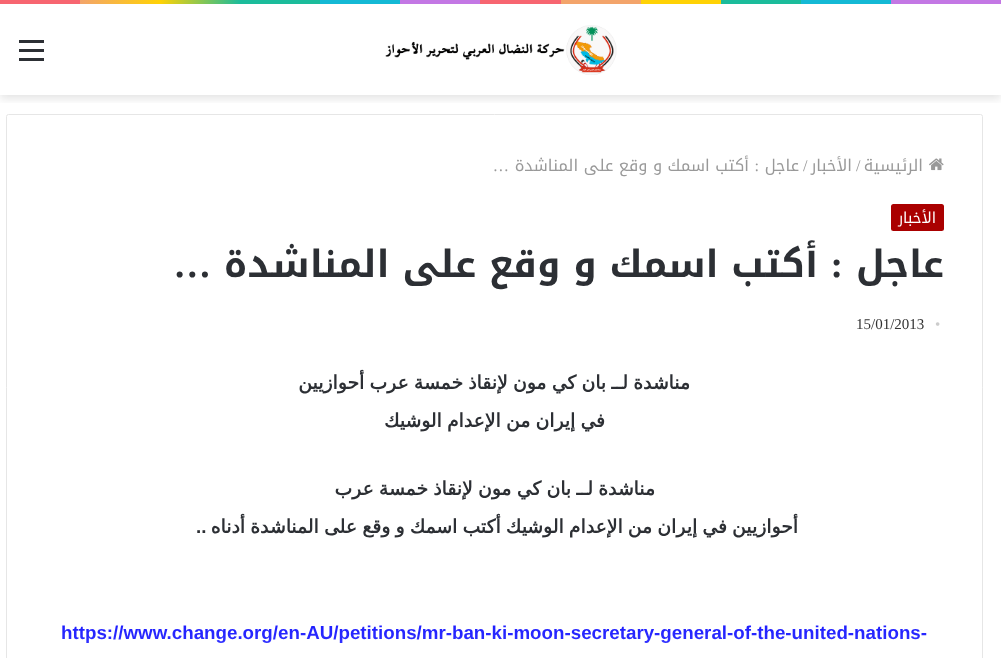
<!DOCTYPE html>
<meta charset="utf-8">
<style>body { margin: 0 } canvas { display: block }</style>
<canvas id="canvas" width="1001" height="658"></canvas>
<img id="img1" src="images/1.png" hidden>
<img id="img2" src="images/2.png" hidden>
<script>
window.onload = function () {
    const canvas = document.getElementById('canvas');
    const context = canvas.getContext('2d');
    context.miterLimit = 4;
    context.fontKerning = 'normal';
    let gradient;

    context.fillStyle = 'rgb(255, 255, 255)';
    context.fillRect(0, 0, 1001, 658);
    gradient = context.createLinearGradient(0, 1.9, 1001, 1.9);
    gradient.addColorStop(0, 'rgb(247, 101, 112)');
    gradient.addColorStop(0.08, 'rgb(247, 101, 112)');
    gradient.addColorStop(0.08, 'rgb(243, 164, 107)');
    gradient.addColorStop(0.16, 'rgb(255, 210, 5)');
    gradient.addColorStop(0.24, 'rgb(27, 188, 155)');
    gradient.addColorStop(0.32, 'rgb(27, 188, 155)');
    gradient.addColorStop(0.32, 'rgb(20, 185, 213)');
    gradient.addColorStop(0.4, 'rgb(20, 185, 213)');
    gradient.addColorStop(0.4, 'rgb(195, 119, 228)');
    gradient.addColorStop(0.48, 'rgb(195, 119, 228)');
    gradient.addColorStop(0.48, 'rgb(247, 101, 112)');
    gradient.addColorStop(0.56, 'rgb(247, 101, 112)');
    gradient.addColorStop(0.56, 'rgb(243, 164, 107)');
    gradient.addColorStop(0.64, 'rgb(243, 164, 107)');
    gradient.addColorStop(0.64, 'rgb(255, 210, 5)');
    gradient.addColorStop(0.72, 'rgb(255, 210, 5)');
    gradient.addColorStop(0.72, 'rgb(27, 188, 155)');
    gradient.addColorStop(0.8, 'rgb(27, 188, 155)');
    gradient.addColorStop(0.8, 'rgb(20, 185, 213)');
    gradient.addColorStop(0.89, 'rgb(20, 185, 213)');
    gradient.addColorStop(0.89, 'rgb(195, 119, 228)');
    gradient.addColorStop(1, 'rgb(195, 119, 228)');
    context.fillStyle = gradient;
    context.fillRect(0, 0, 1001, 4);
    context.save();
    context.beginPath();
    context.rect(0, 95, 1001, 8);
    context.clip();
    context.fillStyle = 'rgba(0, 0, 0, 0.1)';
    context.filter = 'blur(4.5px)';
    context.beginPath();
    context.rect(0, 8, 1001, 91);
    context.fill();
    context.filter = 'none';
    context.restore();
    context.drawImage(document.getElementById('img1'), 385, 25, 232, 50);
    context.fillStyle = 'rgb(44, 47, 52)';
    context.fillRect(19, 49, 25, 3);
    context.fillRect(19, 40, 25, 3);
    context.fillRect(19, 58, 25, 3);
    context.beginPath();
    context.roundRect(6.5, 114.5, 976, 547, 2);
    context.strokeStyle = 'rgb(230, 230, 230)';
    context.stroke();
    context.drawImage(document.getElementById('img2'), 929, 158, 15, 13);
    context.fillStyle = 'rgb(170, 0, 0)';
    context.beginPath();
    context.roundRect(891, 204, 53, 27, 2.5);
    context.fill();
    context.direction = 'rtl';
    context.font = '16.25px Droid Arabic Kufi';
    context.fillStyle = 'rgb(153, 153, 153)';
    context.fillText('الرئيسية', 923, 171);
    context.direction = 'ltr';
    context.font = '16.25px Liberation Serif';
    context.fillText('/', 856, 171);
    context.direction = 'rtl';
    context.font = '16.25px Droid Arabic Kufi';
    context.fillText('الأخبار', 852, 171);
    context.direction = 'ltr';
    context.font = '16.25px Liberation Serif';
    context.fillText('/', 803, 171);
    context.direction = 'rtl';
    context.font = '16.25px Droid Arabic Kufi';
    context.fillText('عاجل', 799, 171);
    context.font = '16.25px Liberation Serif';
    context.fillText(':', 759, 171);
    context.font = '16.25px Droid Arabic Kufi';
    context.fillText('أكتب اسمك و وقع على المناشدة', 749, 171);
    context.font = '16.25px Liberation Serif';
    context.fillText('…', 509, 171);
    context.font = '15px Droid Arabic Kufi';
    context.fillStyle = 'rgb(255, 255, 255)';
    context.fillText('الأخبار', 936, 223);
    context.font = 'bold 37.5px Droid Arabic Kufi';
    context.fillStyle = 'rgb(44, 47, 52)';
    context.fillText('عاجل', 944, 277);
    context.font = 'bold 37.5px Liberation Serif';
    context.fillText(':', 843, 277);
    context.font = 'bold 37.5px Droid Arabic Kufi';
    context.fillText('أكتب اسمك و وقع على المناشدة', 818, 277);
    context.font = 'bold 37.5px Liberation Serif';
    context.fillText('…', 211, 277);
    context.direction = 'ltr';
    context.font = '15px Liberation Serif';
    context.fillStyle = 'rgb(204, 204, 204)';
    context.fillText('•', 935, 329);
    context.fillStyle = 'rgb(51, 51, 51)';
    context.fillText('15/01/2013', 856, 329);
    context.wordSpacing = '-0.75px';
    context.direction = 'rtl';
    context.font = 'bold 18.75px DejaVu Sans';
    context.fillStyle = 'rgb(44, 47, 52)';
    context.fillText('مناشدة لــ بان كي مون لإنقاذ خمسة عرب أحوازيين', 690, 389);
    context.fillText('في إيران من الإعدام الوشيك', 605, 427);
    context.fillText('مناشدة لــ بان كي مون لإنقاذ خمسة عرب', 655, 495);
    context.fillText('أحوازيين في إيران من الإعدام الوشيك أكتب اسمك و وقع على المناشدة أدناه', 798, 533);
    context.wordSpacing = '0px';
    context.direction = 'ltr';
    context.font = 'bold 18.75px Liberation Sans';
    context.fillText('..', 196, 533);
    context.fillStyle = 'rgb(0, 0, 255)';
    context.fillText('https://www.change.org/en-AU/petitions/mr-ban-ki-moon-secretary-general-of-the-united-nations-', 61, 639);
    gradient = context.createLinearGradient(494, 364, 494, 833);
    gradient.addColorStop(0.5, 'rgba(255, 255, 255, 0)');
    gradient.addColorStop(1, 'rgb(255, 255, 255)');
    context.fillStyle = gradient;
    context.fillRect(62, 625, 865, 18);
};
</script>
